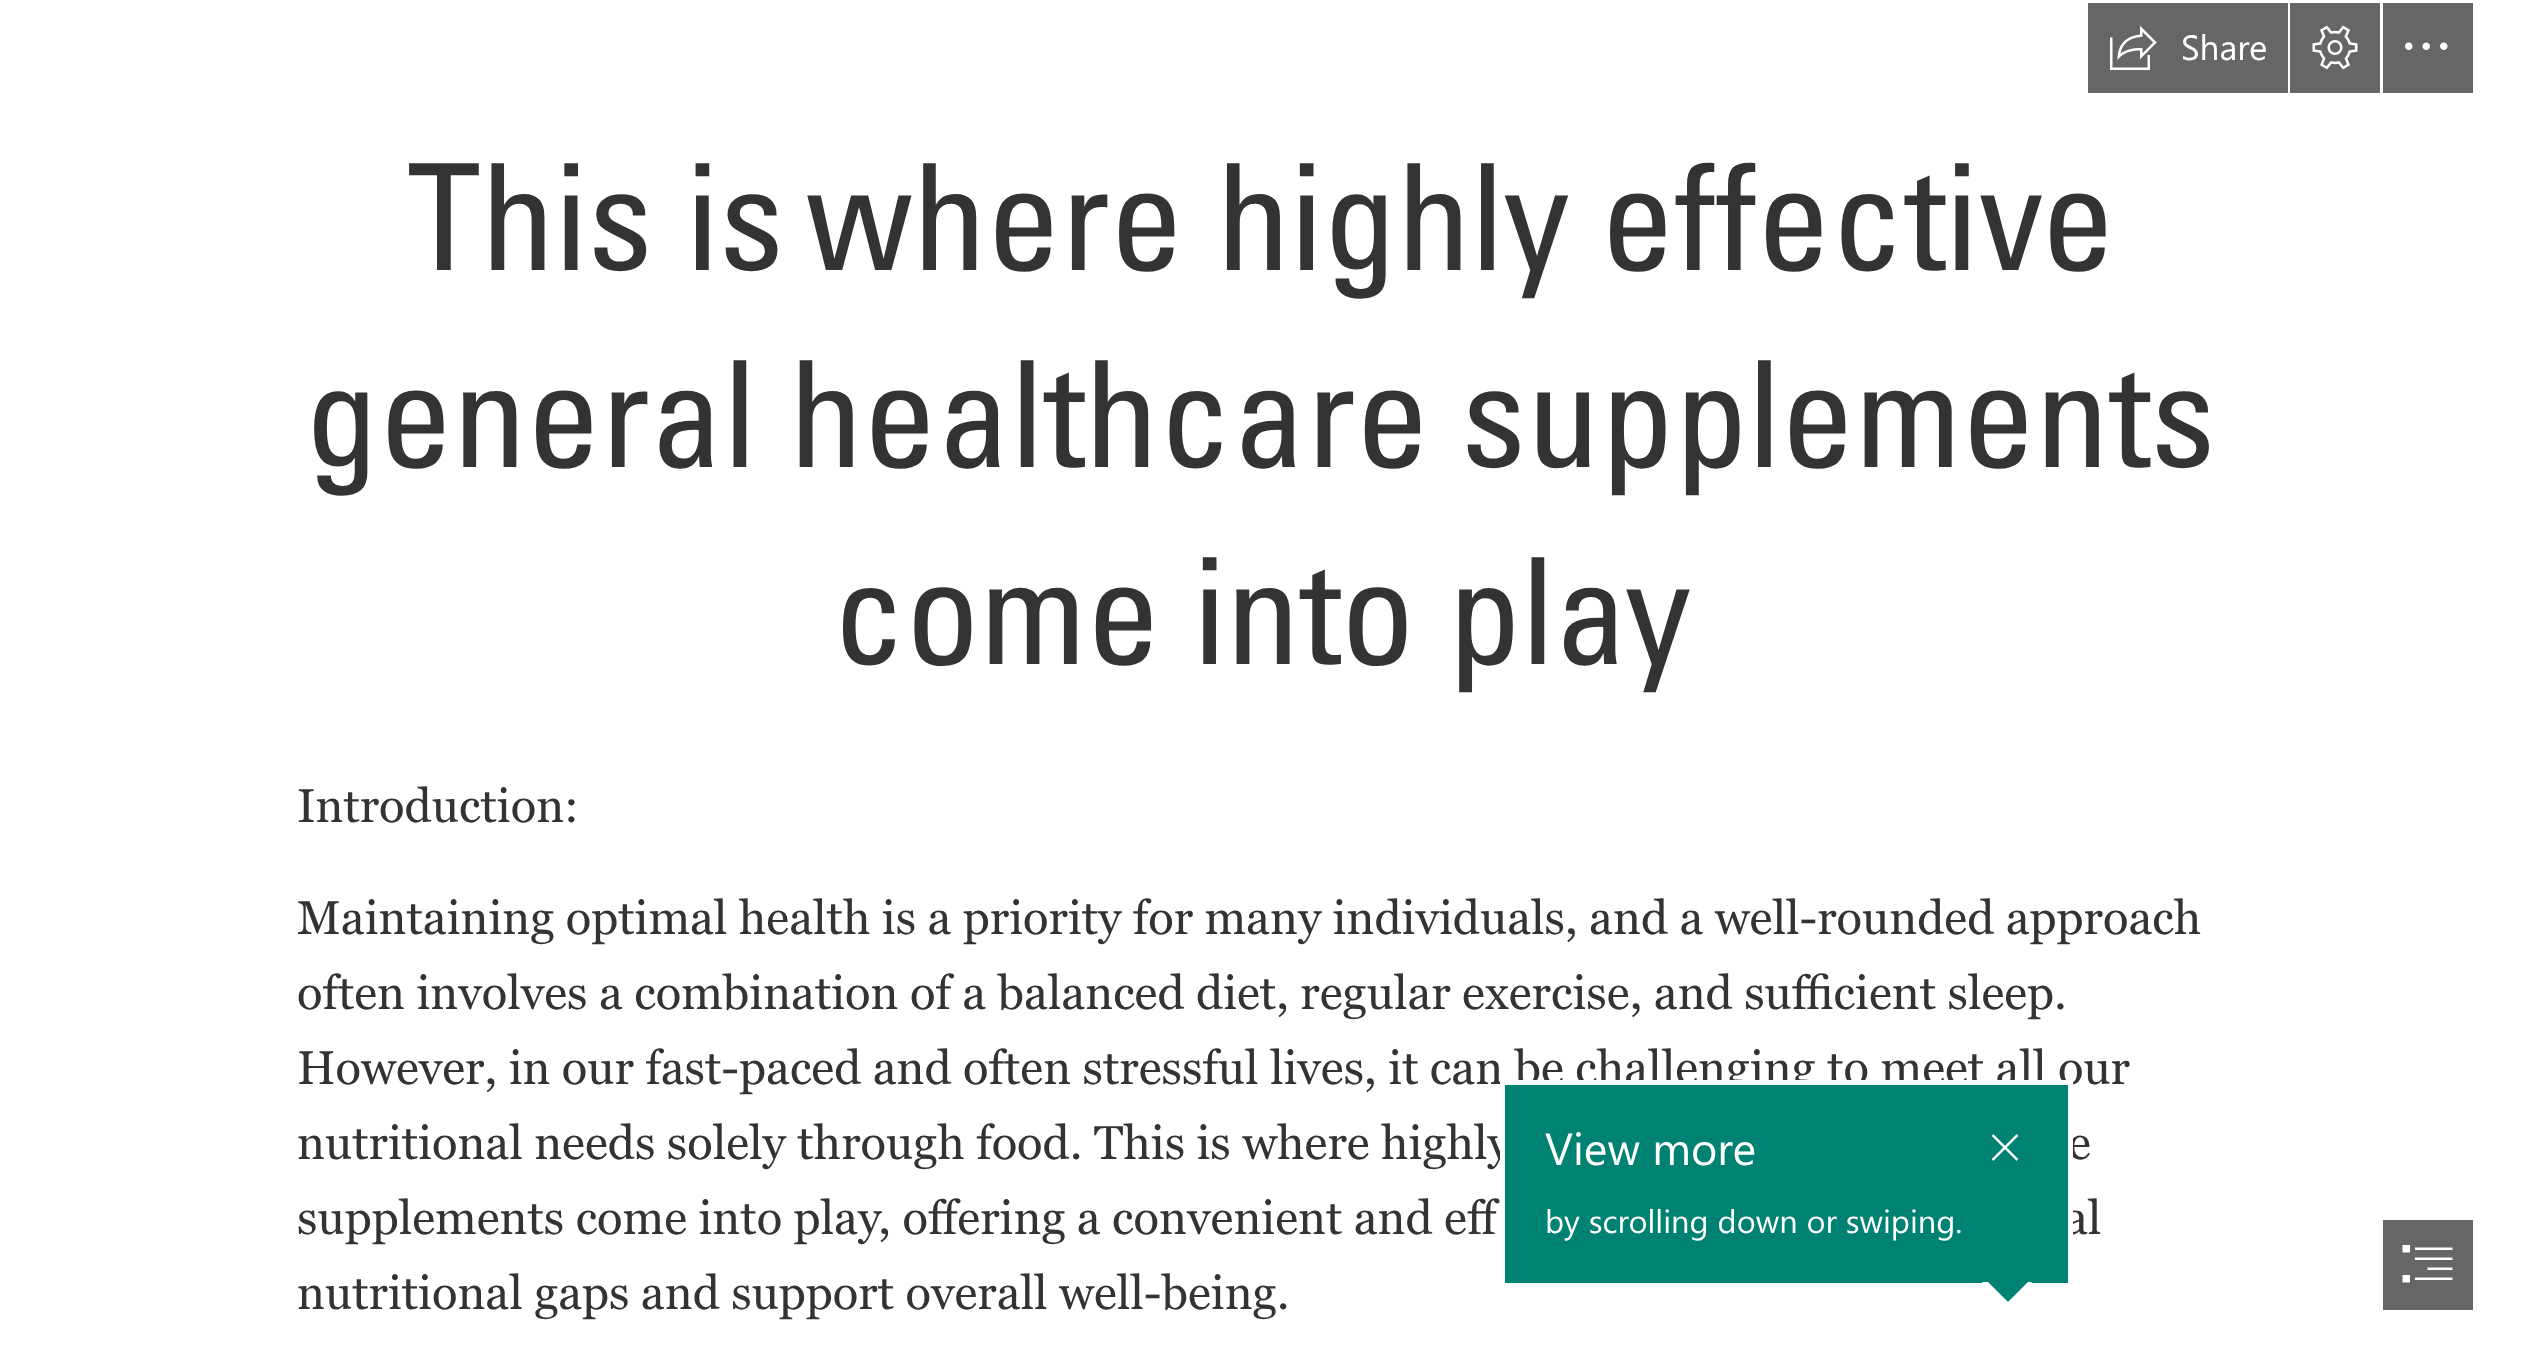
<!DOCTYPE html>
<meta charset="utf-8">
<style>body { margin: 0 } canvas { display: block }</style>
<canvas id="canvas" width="2522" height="1361"></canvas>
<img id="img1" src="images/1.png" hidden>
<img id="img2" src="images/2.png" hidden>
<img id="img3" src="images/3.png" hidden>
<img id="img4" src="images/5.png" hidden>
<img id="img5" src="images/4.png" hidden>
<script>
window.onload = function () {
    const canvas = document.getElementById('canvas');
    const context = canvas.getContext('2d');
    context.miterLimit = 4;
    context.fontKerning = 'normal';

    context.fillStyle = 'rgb(255, 255, 255)';
    context.fillRect(0, 0, 2522, 1361);
    context.fillStyle = 'rgb(102, 102, 102)';
    context.fillRect(2088, 3, 200, 90);
    context.drawImage(document.getElementById('img1'), 2110, 25, 47, 45);
    context.fillRect(2290, 3, 90, 90);
    context.drawImage(document.getElementById('img2'), 2312, 25, 46, 45);
    context.fillRect(2383, 3, 90, 90);
    context.drawImage(document.getElementById('img3'), 2405, 42, 43, 8);
    context.fillRect(2383, 1220, 90, 90);
    context.drawImage(document.getElementById('img4'), 2402, 1245, 51, 38);
    context.font = '35px Segoe UI';
    context.fillStyle = 'rgb(255, 255, 255)';
    context.fillText('Share', 2181, 60);
    context.font = '147.75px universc';
    context.fillStyle = 'rgb(51, 51, 51)';
    context.fillText('This is where highly effective', 407, 270);
    context.fillText('general healthcare supplements', 305, 467);
    context.fillText('come into play', 832, 664);
    context.font = '47.3px Georgia';
    context.fillText('Introduction:', 297, 822);
    context.fillText('Maintaining optimal health is a priority for many individuals, and a well-rounded approach', 297, 934);
    context.fillText('often involves a combination of a balanced diet, regular exercise, and sufficient sleep.', 297, 1009);
    context.fillText('However, in our fast-paced and often stressful lives, it can be challenging to meet all our', 297, 1084);
    context.fillText('nutritional needs solely through food. This is where highly', 297, 1159);
    context.fillText('e', 2068, 1159);
    context.fillText('supplements come into play, offering a convenient and eff', 297, 1234);
    context.fillText('al', 2064, 1234);
    context.fillText('nutritional gaps and support overall well-being.', 297, 1309);
    context.fillStyle = 'rgb(0, 130, 114)';
    context.beginPath();
    context.rect(1502.5, 1082.5, 568, 203);
    context.fill();
    context.strokeStyle = 'rgb(255, 255, 255)';
    context.lineWidth = 5;
    context.stroke();
    context.font = '45px Segoe UI';
    context.fillStyle = 'rgb(255, 255, 255)';
    context.fillText('View more', 1545, 1165);
    context.font = '32.5px Segoe UI';
    context.fillText('by scrolling down or swiping.', 1545, 1233);
    context.drawImage(document.getElementById('img5'), 1991, 1134, 28, 27);
    context.beginPath();
    context.moveTo(1982, 1282);
    context.lineTo(2032, 1282);
    context.lineTo(2008, 1308);
    context.closePath();
    context.fill();
    context.fillStyle = 'rgb(0, 130, 114)';
    context.beginPath();
    context.moveTo(1988, 1282);
    context.lineTo(2028, 1282);
    context.lineTo(2008, 1302);
    context.closePath();
    context.fill();
};
</script>
